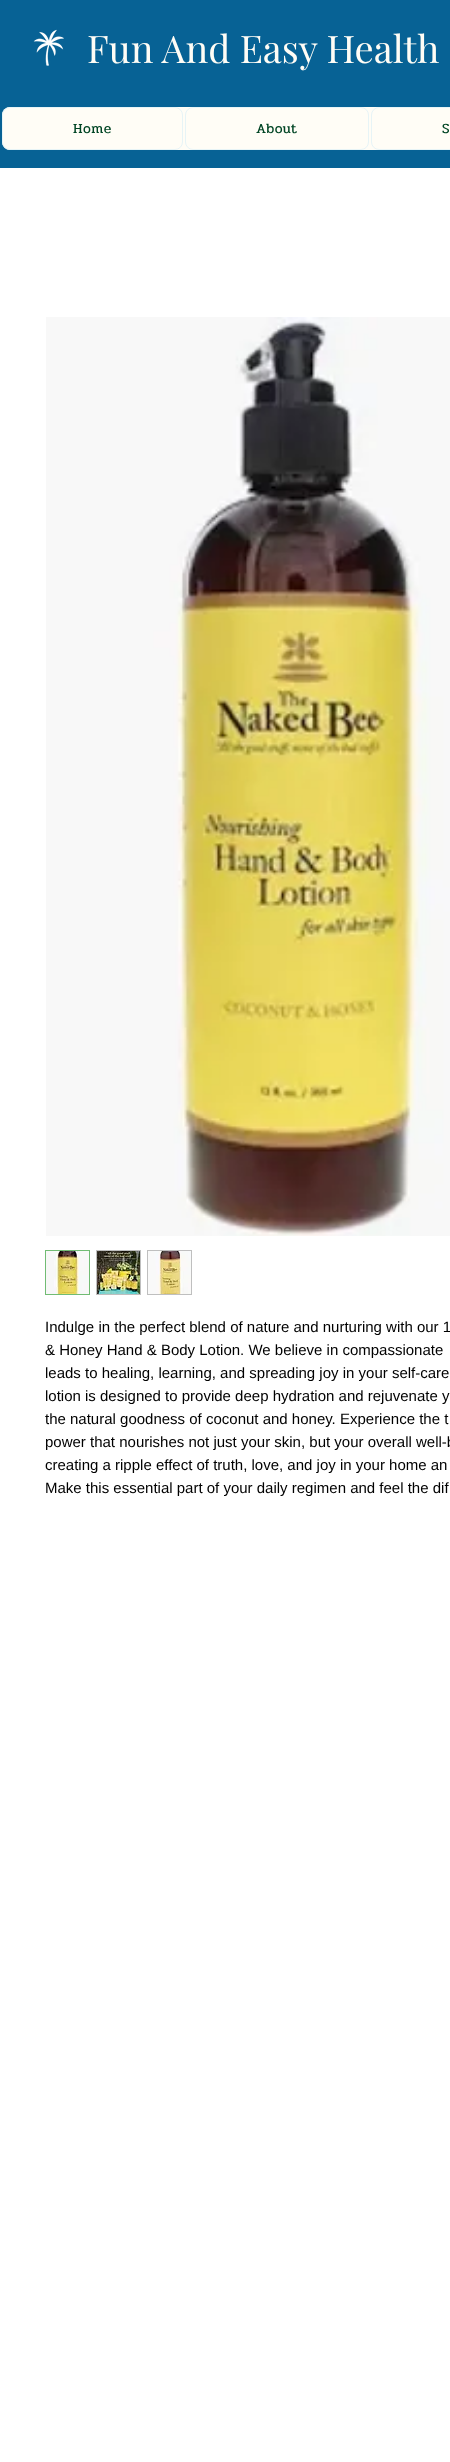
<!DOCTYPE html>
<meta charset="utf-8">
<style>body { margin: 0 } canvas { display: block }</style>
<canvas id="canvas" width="450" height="2462"></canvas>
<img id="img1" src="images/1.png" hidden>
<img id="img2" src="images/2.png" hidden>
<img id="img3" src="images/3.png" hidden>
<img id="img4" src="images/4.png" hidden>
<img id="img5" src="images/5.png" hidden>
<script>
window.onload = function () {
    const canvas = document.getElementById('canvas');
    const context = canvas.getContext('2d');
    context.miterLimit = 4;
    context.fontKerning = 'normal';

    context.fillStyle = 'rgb(255, 255, 255)';
    context.fillRect(0, 0, 450, 2462);
    context.fillStyle = 'rgb(7, 98, 149)';
    context.fillRect(0, 0, 450, 168);
    context.drawImage(document.getElementById('img1'), 33, 29, 31, 37);
    context.fillStyle = 'rgb(255, 253, 246)';
    context.beginPath();
    context.roundRect(2, 107, 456, 43, 8);
    context.fill();
    context.beginPath();
    context.roundRect(2.5, 107.5, 180, 42, 7.5);
    context.strokeStyle = 'rgb(231, 244, 246)';
    context.stroke();
    context.beginPath();
    context.roundRect(185.5, 107.5, 183, 42, 7.5);
    context.stroke();
    context.beginPath();
    context.roundRect(371.5, 107.5, 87, 42, 7.5);
    context.stroke();
    context.drawImage(document.getElementById('img2'), 46, 317, 404, 919);
    context.strokeStyle = 'rgb(113, 188, 116)';
    context.strokeRect(45.5, 1250.5, 44, 44);
    context.drawImage(document.getElementById('img3'), 46, 1251, 43, 43);
    context.fillStyle = 'rgb(191, 191, 191)';
    context.fillRect(96, 1250, 45, 45);
    context.drawImage(document.getElementById('img4'), 97, 1251, 43, 43);
    context.fillRect(147, 1250, 45, 45);
    context.drawImage(document.getElementById('img5'), 148, 1251, 43, 43);
    context.font = '38px Playfair Display';
    context.fillStyle = 'rgb(255, 253, 246)';
    context.fillText('Fun And Easy Health', 87, 63);
    context.letterSpacing = '0.5px';
    context.font = '14px Pridi';
    context.fillStyle = 'rgb(0, 69, 36)';
    context.fillText('Home', 73, 133);
    context.fillText('About', 256, 133);
    context.fillText('S', 442, 133);
    context.letterSpacing = '0px';
    context.font = '15px Liberation Sans';
    context.fillStyle = 'rgb(0, 0, 0)';
    context.fillText('Indulge in the perfect blend of nature and nurturing with our 1', 45, 1332);
    context.fillText('& Honey Hand & Body Lotion. We believe in compassionate', 45, 1355);
    context.fillText('leads to healing, learning, and spreading joy in your self-care', 45, 1378);
    context.fillText('lotion is designed to provide deep hydration and rejuvenate y', 45, 1401);
    context.fillText('the natural goodness of coconut and honey. Experience the t', 45, 1424);
    context.fillText('power that nourishes not just your skin, but your overall well-b', 45, 1447);
    context.fillText('creating a ripple effect of truth, love, and joy in your home an', 45, 1470);
    context.fillText('Make this essential part of your daily regimen and feel the dif', 45, 1493);
};
</script>
